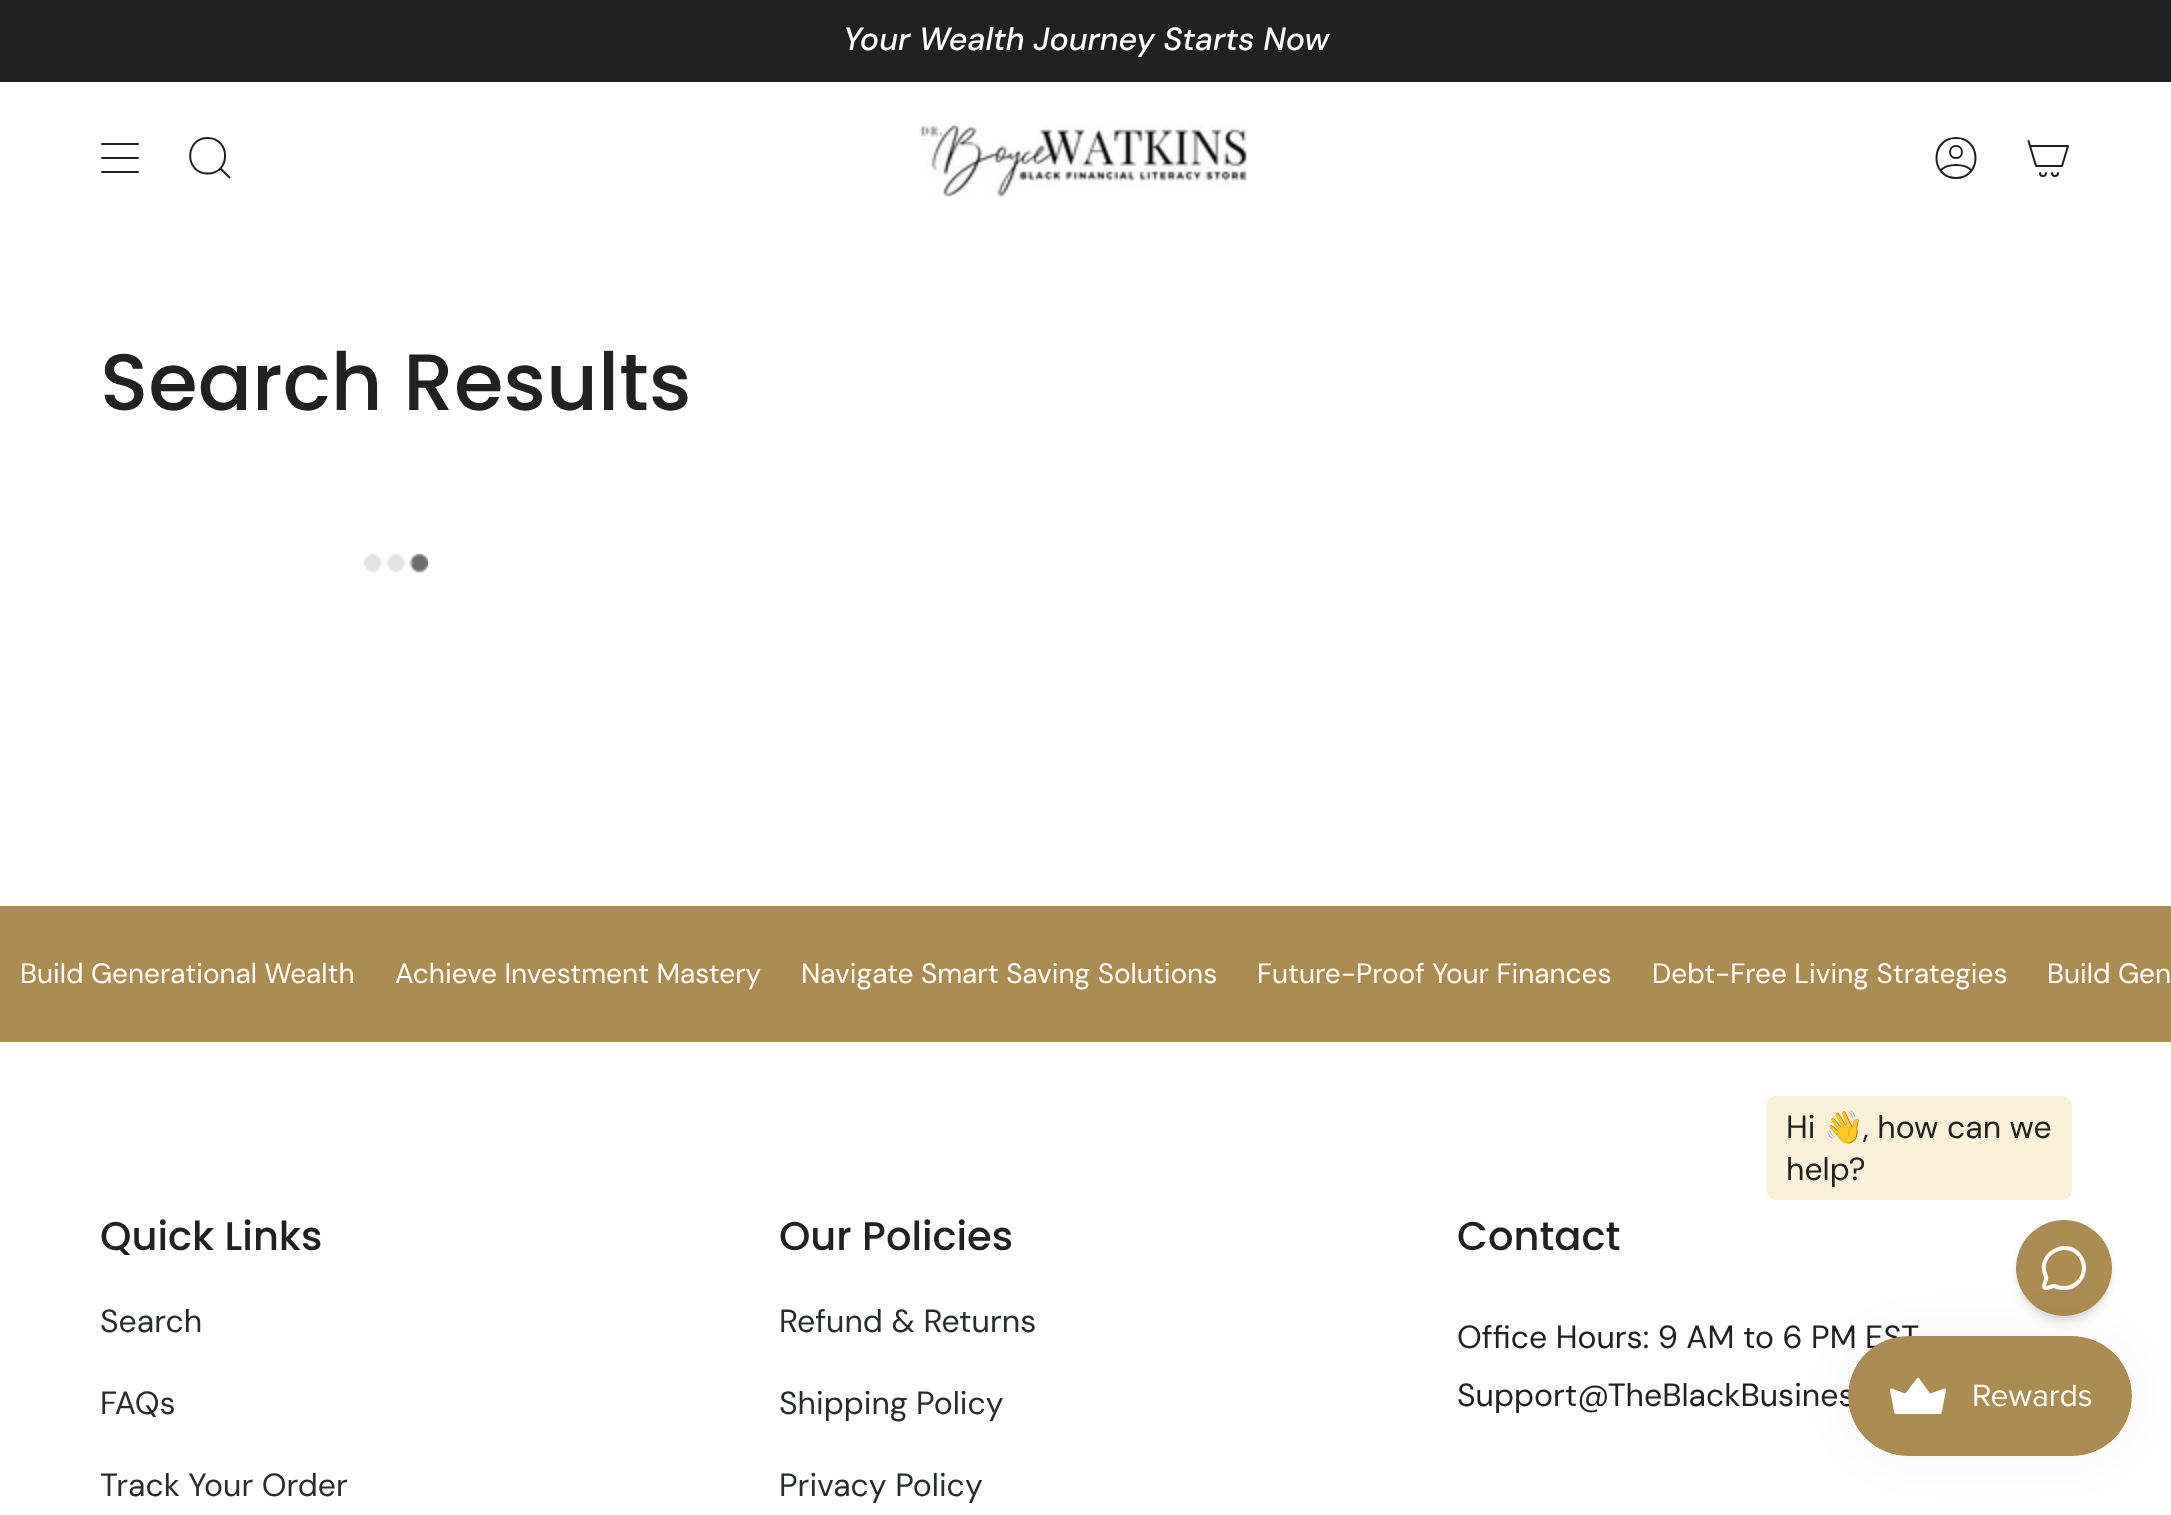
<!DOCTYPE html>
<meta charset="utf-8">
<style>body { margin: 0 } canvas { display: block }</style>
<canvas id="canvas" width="2171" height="1515"></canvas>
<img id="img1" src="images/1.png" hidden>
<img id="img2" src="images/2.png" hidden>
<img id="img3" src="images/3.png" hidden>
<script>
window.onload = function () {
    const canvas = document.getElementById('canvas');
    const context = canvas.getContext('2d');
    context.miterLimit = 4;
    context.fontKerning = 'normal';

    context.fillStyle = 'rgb(255, 255, 255)';
    context.fillRect(0, 0, 2171, 1515);
    context.fillStyle = 'rgb(33, 33, 33)';
    context.fillRect(0, 0, 2171, 82);
    context.beginPath();
    context.moveTo(102, 144);
    context.lineTo(138, 144);
    context.moveTo(102, 158);
    context.lineTo(138, 158);
    context.moveTo(102, 172);
    context.lineTo(138, 172);
    context.strokeStyle = 'rgb(33, 33, 33)';
    context.lineWidth = 2;
    context.lineCap = 'round';
    context.lineJoin = 'round';
    context.stroke();
    context.beginPath();
    context.moveTo(207.5, 138);
    context.bezierCurveTo(231, 138, 231, 174.5, 207, 173.5);
    context.bezierCurveTo(184, 172.5, 185, 138, 207.5, 138);
    context.closePath();
    context.moveTo(220, 168);
    context.lineTo(230, 178);
    context.lineCap = 'butt';
    context.lineJoin = 'miter';
    context.stroke();
    context.drawImage(document.getElementById('img1'), 919, 121, 328, 77);
    context.beginPath();
    context.moveTo(1956, 138);
    context.bezierCurveTo(1930, 138, 1930, 178, 1956, 178);
    context.bezierCurveTo(1982, 178, 1982, 138, 1956, 138);
    context.closePath();
    context.moveTo(1940.5, 170.5);
    context.bezierCurveTo(1946.5, 163, 1965.5, 163, 1971.5, 170.5);
    context.moveTo(1956, 158);
    context.bezierCurveTo(1964, 158, 1964, 146, 1956, 146);
    context.bezierCurveTo(1948, 146, 1948, 158, 1956, 158);
    context.closePath();
    context.lineCap = 'round';
    context.lineJoin = 'round';
    context.stroke();
    context.beginPath();
    context.moveTo(2030, 146);
    context.lineTo(2068, 146);
    context.lineTo(2062, 166);
    context.lineTo(2036, 166);
    context.closePath();
    context.moveTo(2030, 146);
    context.lineTo(2028.5, 141);
    context.moveTo(2046, 173);
    context.bezierCurveTo(2046, 177, 2040, 177, 2040, 173);
    context.moveTo(2058, 173);
    context.bezierCurveTo(2058, 177, 2052, 177, 2052, 173);
    context.stroke();
    context.drawImage(document.getElementById('img2'), 363, 553, 65, 20);
    context.fillStyle = 'rgb(171, 140, 82)';
    context.fillRect(0, 906, 2171, 136);
    context.fillStyle = 'rgb(250, 241, 219)';
    context.beginPath();
    context.roundRect(1766, 1096, 306, 104, 10);
    context.fill();
    context.fillStyle = 'rgba(0, 0, 0, 0.1)';
    context.filter = 'blur(4px)';
    context.beginPath();
    context.roundRect(2020, 1228, 88, 88, 44);
    context.fill();
    context.filter = 'none';
    context.filter = 'blur(6px)';
    context.beginPath();
    context.roundRect(2018, 1230, 92, 92, 46);
    context.fill();
    context.filter = 'none';
    context.fillStyle = 'rgb(171, 140, 82)';
    context.beginPath();
    context.arc(2064, 1268, 48, 0, 2 * Math.PI);
    context.fill();
    context.beginPath();
    context.moveTo(2046, 1276.5);
    context.bezierCurveTo(2047.5, 1280, 2042.5, 1285, 2044.5, 1287.5);
    context.bezierCurveTo(2046, 1289.5, 2051.5, 1286, 2054, 1286);
    context.lineTo(2059, 1287.5);
    context.bezierCurveTo(2062.5, 1288, 2066, 1288, 2069, 1287.5);
    context.bezierCurveTo(2081, 1284, 2087.5, 1270.5, 2082, 1259.5);
    context.bezierCurveTo(2071, 1235.5, 2034.5, 1253, 2046, 1276.5);
    context.strokeStyle = 'rgb(255, 255, 255)';
    context.lineWidth = 4;
    context.stroke();
    context.fillStyle = 'rgba(0, 0, 0, 0.05)';
    context.filter = 'blur(25px)';
    context.beginPath();
    context.roundRect(1848, 1336, 284, 120, 60);
    context.fill();
    context.filter = 'none';
    context.font = 'italic 500 32px DM Sans';
    context.fillStyle = 'rgb(255, 255, 255)';
    context.fillText('Your Wealth Journey Starts Now', 843, 50);
    context.font = '500 80px Poppins';
    context.fillStyle = 'rgb(33, 33, 33)';
    context.fillText('Search Results', 100, 410);
    context.font = '28px DM Sans';
    context.fillStyle = 'rgb(255, 255, 255)';
    context.fillText('Build Generational Wealth', 20, 983);
    context.fillText('Achieve Investment Mastery', 395, 983);
    context.fillText('Navigate Smart Saving Solutions', 801, 983);
    context.fillText('Future-Proof Your Finances', 1257, 983);
    context.fillText('Debt-Free Living Strategies', 1652, 983);
    context.fillText('Build Gen', 2047, 983);
    context.font = '32px DM Sans';
    context.fillStyle = 'rgb(33, 33, 33)';
    context.fillText('Hi', 1786, 1138);
    context.font = '32px Noto Color Emoji';
    context.fillText('👋', 1824, 1138);
    context.font = '32px DM Sans';
    context.fillText(', how can we', 1863, 1138);
    context.fillText('help?', 1786, 1180);
    context.font = '500 40px Poppins';
    context.fillText('Quick Links', 100, 1250);
    context.font = '32px DM Sans';
    context.fillStyle = 'rgb(40, 44, 46)';
    context.fillText('Search', 100, 1332);
    context.fillText('FAQs', 100, 1414);
    context.fillText('Track Your Order', 100, 1496);
    context.font = '500 40px Poppins';
    context.fillStyle = 'rgb(33, 33, 33)';
    context.fillText('Our Policies', 779, 1250);
    context.font = '32px DM Sans';
    context.fillStyle = 'rgb(40, 44, 46)';
    context.fillText('Refund & Returns', 779, 1332);
    context.fillText('Shipping Policy', 779, 1414);
    context.fillText('Privacy Policy', 779, 1496);
    context.font = '500 40px Poppins';
    context.fillStyle = 'rgb(33, 33, 33)';
    context.fillText('Contact', 1457, 1250);
    context.font = '32px DM Sans';
    context.fillText('Office Hours: 9 AM to 6 PM EST', 1457, 1348);
    context.fillText('Support@TheBlackBusines', 1457, 1406);
    context.drawImage(document.getElementById('img3'), 1848, 1336, 284, 120);
};
</script>
